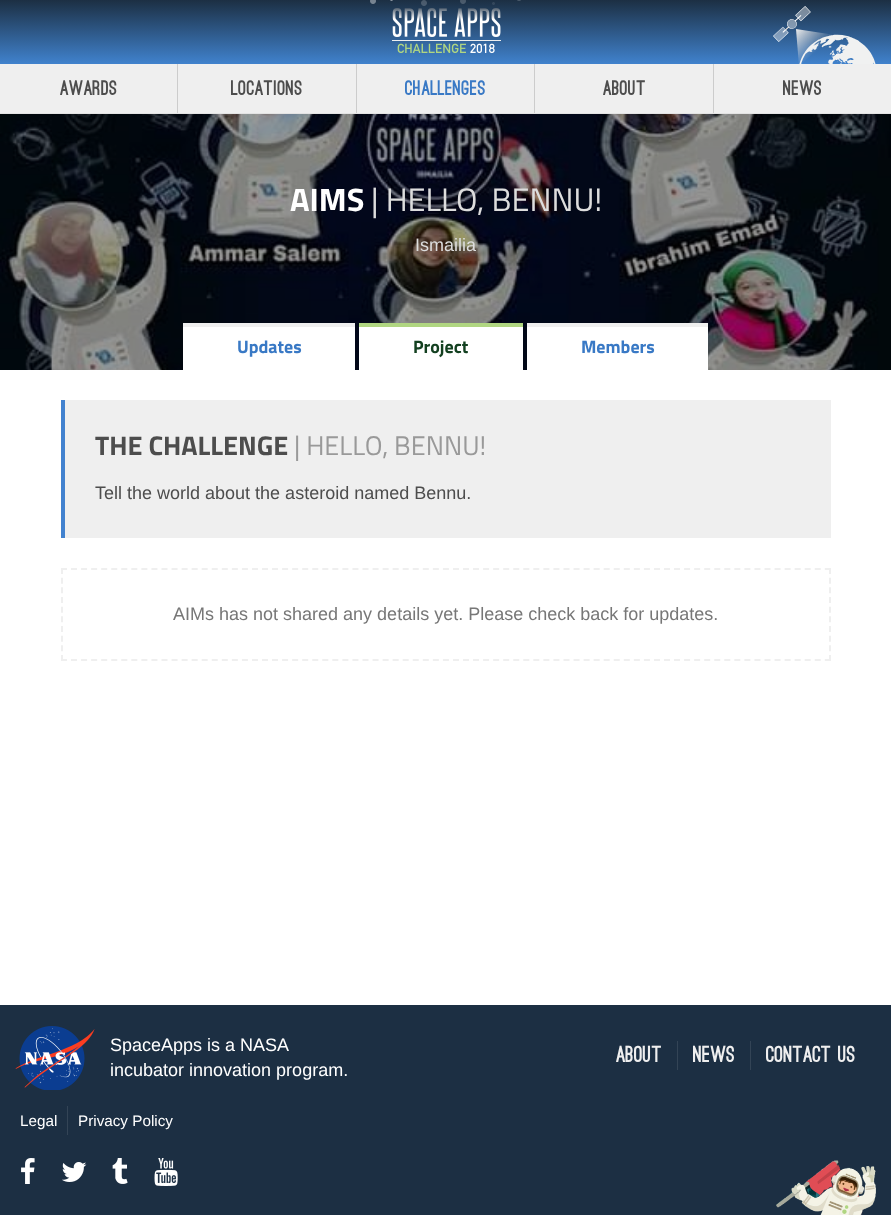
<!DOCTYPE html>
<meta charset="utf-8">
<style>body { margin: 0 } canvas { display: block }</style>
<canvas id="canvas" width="891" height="1215"></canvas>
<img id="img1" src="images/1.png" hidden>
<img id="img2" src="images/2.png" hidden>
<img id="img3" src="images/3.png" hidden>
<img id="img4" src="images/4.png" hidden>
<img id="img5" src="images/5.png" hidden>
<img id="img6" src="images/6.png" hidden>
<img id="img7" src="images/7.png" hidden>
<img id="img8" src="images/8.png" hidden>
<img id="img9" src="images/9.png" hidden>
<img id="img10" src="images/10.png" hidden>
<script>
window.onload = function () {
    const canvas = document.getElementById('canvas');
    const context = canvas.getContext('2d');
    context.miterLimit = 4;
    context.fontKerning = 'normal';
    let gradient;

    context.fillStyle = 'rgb(255, 255, 255)';
    context.fillRect(0, 0, 891, 1215);
    context.fillStyle = 'rgb(239, 239, 239)';
    context.fillRect(0, 64, 891, 49);
    context.fillStyle = 'rgb(227, 227, 227)';
    context.fillRect(0, 113, 891, 1);
    gradient = context.createLinearGradient(446, 64, 446, 0);
    gradient.addColorStop(0, 'rgb(64, 130, 205)');
    gradient.addColorStop(1, 'rgb(28, 47, 67)');
    context.fillStyle = gradient;
    context.fillRect(0, 0, 891, 64);
    context.drawImage(document.getElementById('img1'), 370, 0, 151, 6);
    context.drawImage(document.getElementById('img2'), 392, 8, 109, 46);
    context.drawImage(document.getElementById('img3'), 773, 6, 103, 58);
    context.fillStyle = 'rgb(204, 204, 204)';
    context.fillRect(177, 64, 1, 49);
    context.fillRect(356, 64, 1, 49);
    context.fillRect(534, 64, 1, 49);
    context.fillRect(713, 64, 1, 49);
    context.drawImage(document.getElementById('img4'), 0, 114, 891, 256);
    context.fillStyle = 'rgb(255, 255, 255)';
    context.fillRect(183, 327, 172, 43);
    context.fillStyle = 'rgb(239, 239, 239)';
    context.fillRect(183, 323, 172, 4);
    context.fillStyle = 'rgb(255, 255, 255)';
    context.fillRect(359, 327, 164, 43);
    context.fillStyle = 'rgb(176, 214, 129)';
    context.fillRect(359, 323, 164, 4);
    context.fillStyle = 'rgb(255, 255, 255)';
    context.fillRect(527, 327, 181, 43);
    context.fillStyle = 'rgb(239, 239, 239)';
    context.fillRect(527, 323, 181, 4);
    context.fillRect(65, 400, 766, 138);
    context.fillStyle = 'rgb(66, 130, 207)';
    context.fillRect(61, 400, 4, 138);
    context.beginPath();
    context.moveTo(61, 569);
    context.lineTo(831, 569);
    context.strokeStyle = 'rgb(239, 239, 239)';
    context.lineWidth = 2;
    context.setLineDash([6, 4.05]);
    context.stroke();
    context.beginPath();
    context.moveTo(830, 568);
    context.lineTo(830, 661);
    context.setLineDash([6, 3.67]);
    context.stroke();
    context.beginPath();
    context.moveTo(61, 660);
    context.lineTo(831, 660);
    context.setLineDash([6, 4.05]);
    context.stroke();
    context.beginPath();
    context.moveTo(62, 568);
    context.lineTo(62, 661);
    context.setLineDash([6, 3.67]);
    context.stroke();
    context.fillStyle = 'rgb(28, 47, 67)';
    context.fillRect(0, 1005, 891, 210);
    context.drawImage(document.getElementById('img5'), 15, 1026, 80, 64);
    context.fillStyle = 'rgb(51, 68, 86)';
    context.fillRect(677, 1041, 1, 29);
    context.fillRect(750, 1041, 1, 29);
    context.fillRect(67, 1106, 1, 29);
    context.drawImage(document.getElementById('img6'), 21, 1158, 14, 26);
    context.drawImage(document.getElementById('img7'), 62, 1162, 25, 20);
    context.drawImage(document.getElementById('img8'), 112, 1158, 16, 26);
    context.drawImage(document.getElementById('img9'), 154, 1158, 24, 28);
    context.drawImage(document.getElementById('img10'), 776, 1160, 100, 55);
    context.letterSpacing = '0.25px';
    context.font = '900 20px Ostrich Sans';
    context.fillStyle = 'rgb(77, 77, 77)';
    context.fillText('Awards', 60, 95);
    context.fillText('Locations', 231, 95);
    context.fillStyle = 'rgb(57, 121, 197)';
    context.fillText('Challenges', 405, 95);
    context.fillStyle = 'rgb(77, 77, 77)';
    context.fillText('About', 603, 95);
    context.fillText('News', 783, 95);
    context.letterSpacing = '0px';
    context.font = 'bold 32.5px Titillium Web';
    context.fillStyle = 'rgb(255, 255, 255)';
    context.fillText('AIMS', 290, 211);
    context.font = '32.5px Titillium Web';
    context.fillStyle = 'rgb(221, 221, 221)';
    context.fillText('| HELLO, BENNU!', 371, 211);
    context.font = '18px Liberation Sans';
    context.fillText('Ismailia', 415, 251);
    context.font = 'bold 18px Titillium Web';
    context.fillStyle = 'rgb(57, 121, 197)';
    context.fillText('Updates', 237, 353);
    context.fillStyle = 'rgb(19, 64, 32)';
    context.fillText('Project', 413, 353);
    context.fillStyle = 'rgb(57, 121, 197)';
    context.fillText('Members', 581, 353);
    context.font = 'bold 27px Titillium Web';
    context.fillStyle = 'rgb(77, 77, 77)';
    context.fillText('THE CHALLENGE', 95, 455);
    context.font = '27px Titillium Web';
    context.fillStyle = 'rgb(153, 153, 153)';
    context.fillText('| HELLO, BENNU!', 294, 455);
    context.font = '18px Liberation Sans';
    context.fillStyle = 'rgb(77, 77, 77)';
    context.fillText('Tell the world about the asteroid named Bennu.', 95, 499);
    context.fillStyle = 'rgb(119, 119, 119)';
    context.fillText('AIMs has not shared any details yet. Please check back for updates.', 173, 620);
    context.fillStyle = 'rgb(255, 255, 255)';
    context.fillText('SpaceApps is a NASA', 110, 1051);
    context.fillText('incubator innovation program.', 110, 1076);
    context.font = '900 22px Ostrich Sans';
    context.fillStyle = 'rgb(239, 239, 239)';
    context.fillText('About', 616, 1062);
    context.fillText('News', 693, 1062);
    context.fillText('Contact Us', 766, 1062);
    context.font = '15.25px Liberation Sans';
    context.fillStyle = 'rgb(255, 255, 255)';
    context.fillText('Legal', 20, 1126);
    context.fillText('Privacy Policy', 78, 1126);
};
</script>
